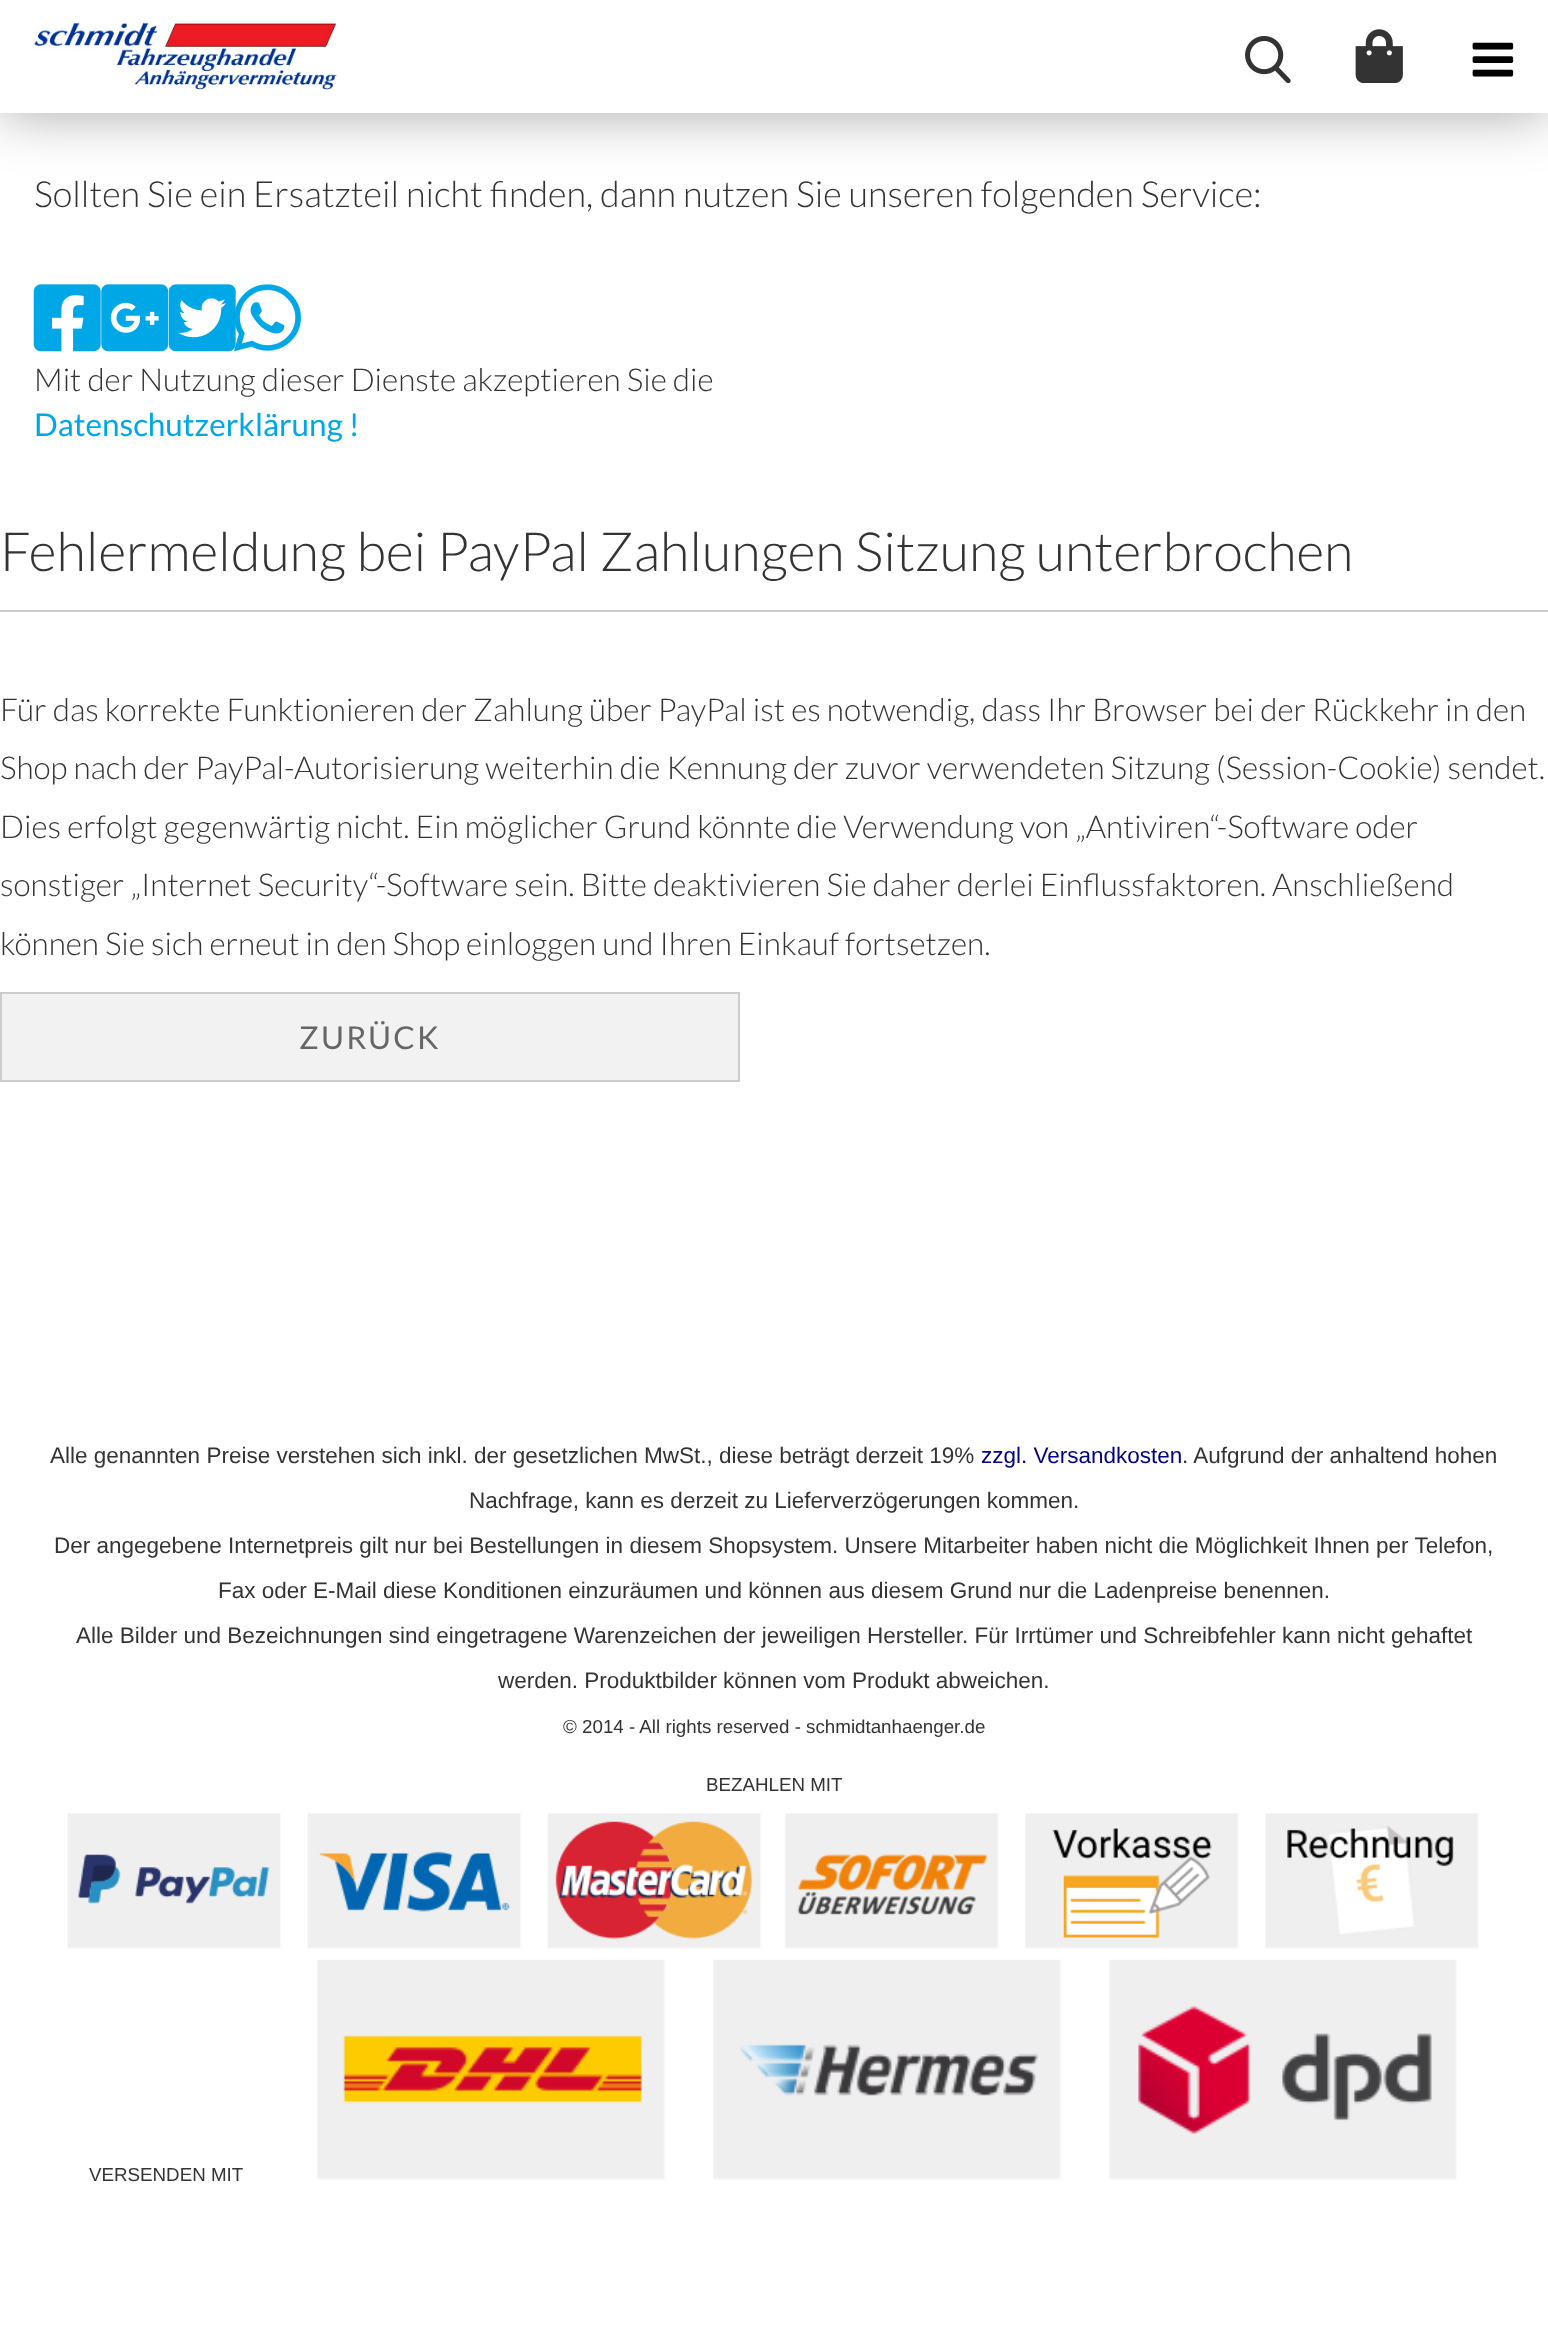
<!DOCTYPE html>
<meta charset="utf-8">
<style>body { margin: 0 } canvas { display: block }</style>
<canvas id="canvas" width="1548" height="2329"></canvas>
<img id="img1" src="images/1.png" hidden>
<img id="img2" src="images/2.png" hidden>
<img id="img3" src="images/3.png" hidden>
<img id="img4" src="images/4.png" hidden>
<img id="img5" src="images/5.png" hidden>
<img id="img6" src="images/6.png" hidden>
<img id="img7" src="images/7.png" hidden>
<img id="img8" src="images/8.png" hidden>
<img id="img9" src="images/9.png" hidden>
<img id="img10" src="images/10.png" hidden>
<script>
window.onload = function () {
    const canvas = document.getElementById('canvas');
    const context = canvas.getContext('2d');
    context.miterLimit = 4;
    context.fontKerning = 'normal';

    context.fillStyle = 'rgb(255, 255, 255)';
    context.fillRect(0, 0, 1548, 2329);
    context.fillStyle = 'rgba(0, 0, 0, 0.35)';
    context.filter = 'blur(28px)';
    context.beginPath();
    context.rect(0, 0, 1548, 113);
    context.fill();
    context.filter = 'none';
    context.fillStyle = 'rgb(255, 255, 255)';
    context.fillRect(0, 0, 1548, 113);
    context.drawImage(document.getElementById('img1'), 33, 22, 305, 68);
    context.drawImage(document.getElementById('img2'), 1245, 36, 46, 47);
    context.drawImage(document.getElementById('img3'), 1355, 29, 48, 54);
    context.drawImage(document.getElementById('img4'), 1472, 42, 42, 35);
    context.drawImage(document.getElementById('img5'), 33, 284, 68, 68);
    context.drawImage(document.getElementById('img6'), 101, 284, 68, 68);
    context.drawImage(document.getElementById('img7'), 168, 284, 68, 68);
    context.drawImage(document.getElementById('img8'), 234, 284, 67, 68);
    context.fillStyle = 'rgb(204, 204, 204)';
    context.fillRect(0, 610, 1548, 2);
    context.fillStyle = 'rgb(242, 242, 242)';
    context.beginPath();
    context.rect(1, 993, 738, 88);
    context.fill();
    context.strokeStyle = 'rgb(204, 204, 204)';
    context.lineWidth = 2;
    context.stroke();
    context.drawImage(document.getElementById('img9'), 67, 1813, 1412, 136);
    context.drawImage(document.getElementById('img10'), 317, 1959, 1140, 221);
    context.font = '300 36px Lato';
    context.fillStyle = 'rgb(51, 51, 51)';
    context.fillText('Sollten Sie ein Ersatzteil nicht finden, dann nutzen Sie unseren folgenden Service:', 34, 207);
    context.font = '300 31.5px Lato';
    context.fillText('Mit der Nutzung dieser Dienste akzeptieren Sie die', 34, 391);
    context.font = '31.5px Lato';
    context.fillStyle = 'rgb(0, 167, 231)';
    context.fillText('Datenschutzerklärung !', 34, 436);
    context.font = '300 54px Lato';
    context.fillStyle = 'rgb(51, 51, 51)';
    context.fillText('Fehlermeldung bei PayPal Zahlungen Sitzung unterbrochen', 0, 571);
    context.font = '300 31.5px Lato';
    context.fillText('Für das korrekte Funktionieren der Zahlung über PayPal ist es notwendig, dass Ihr Browser bei der Rückkehr in den', 0, 721);
    context.fillText('Shop nach der PayPal-Autorisierung weiterhin die Kennung der zuvor verwendeten Sitzung (Session-Cookie) sendet.', 0, 779);
    context.fillText('Dies erfolgt gegenwärtig nicht. Ein möglicher Grund könnte die Verwendung von „Antiviren“-Software oder', 0, 838);
    context.fillText('sonstiger „Internet Security“-Software sein. Bitte deaktivieren Sie daher derlei Einflussfaktoren. Anschließend', 0, 896);
    context.fillText('können Sie sich erneut in den Shop einloggen und Ihren Einkauf fortsetzen.', 0, 955);
    context.letterSpacing = '2.25px';
    context.font = '31.5px Lato';
    context.fillStyle = 'rgb(102, 102, 102)';
    context.fillText('ZURÜCK', 299, 1049);
    context.letterSpacing = '0px';
    context.font = '22.5px Liberation Sans';
    context.fillStyle = 'rgb(51, 51, 51)';
    context.fillText('Alle genannten Preise verstehen sich inkl. der gesetzlichen MwSt., diese beträgt derzeit 19%', 50, 1463);
    context.fillStyle = 'rgb(0, 0, 128)';
    context.fillText('zzgl. Versandkosten', 981, 1463);
    context.fillStyle = 'rgb(51, 51, 51)';
    context.fillText('. Aufgrund der anhaltend hohen', 1182, 1463);
    context.fillText('Nachfrage, kann es derzeit zu Lieferverzögerungen kommen.', 469, 1508);
    context.fillText('Der angegebene Internetpreis gilt nur bei Bestellungen in diesem Shopsystem. Unsere Mitarbeiter haben nicht die Möglichkeit Ihnen per Telefon,', 54, 1553);
    context.fillText('Fax oder E-Mail diese Konditionen einzuräumen und können aus diesem Grund nur die Ladenpreise benennen.', 218, 1598);
    context.fillText('Alle Bilder und Bezeichnungen sind eingetragene Warenzeichen der jeweiligen Hersteller. Für Irrtümer und Schreibfehler kann nicht gehaftet', 76, 1643);
    context.fillText('werden. Produktbilder können vom Produkt abweichen.', 498, 1688);
    context.font = '18.75px Liberation Sans';
    context.fillText('© 2014 - All rights reserved - schmidtanhaenger.de', 563, 1733);
    context.fillText('BEZAHLEN MIT', 706, 1791);
    context.fillText('VERSENDEN MIT', 89, 2181);
};
</script>
